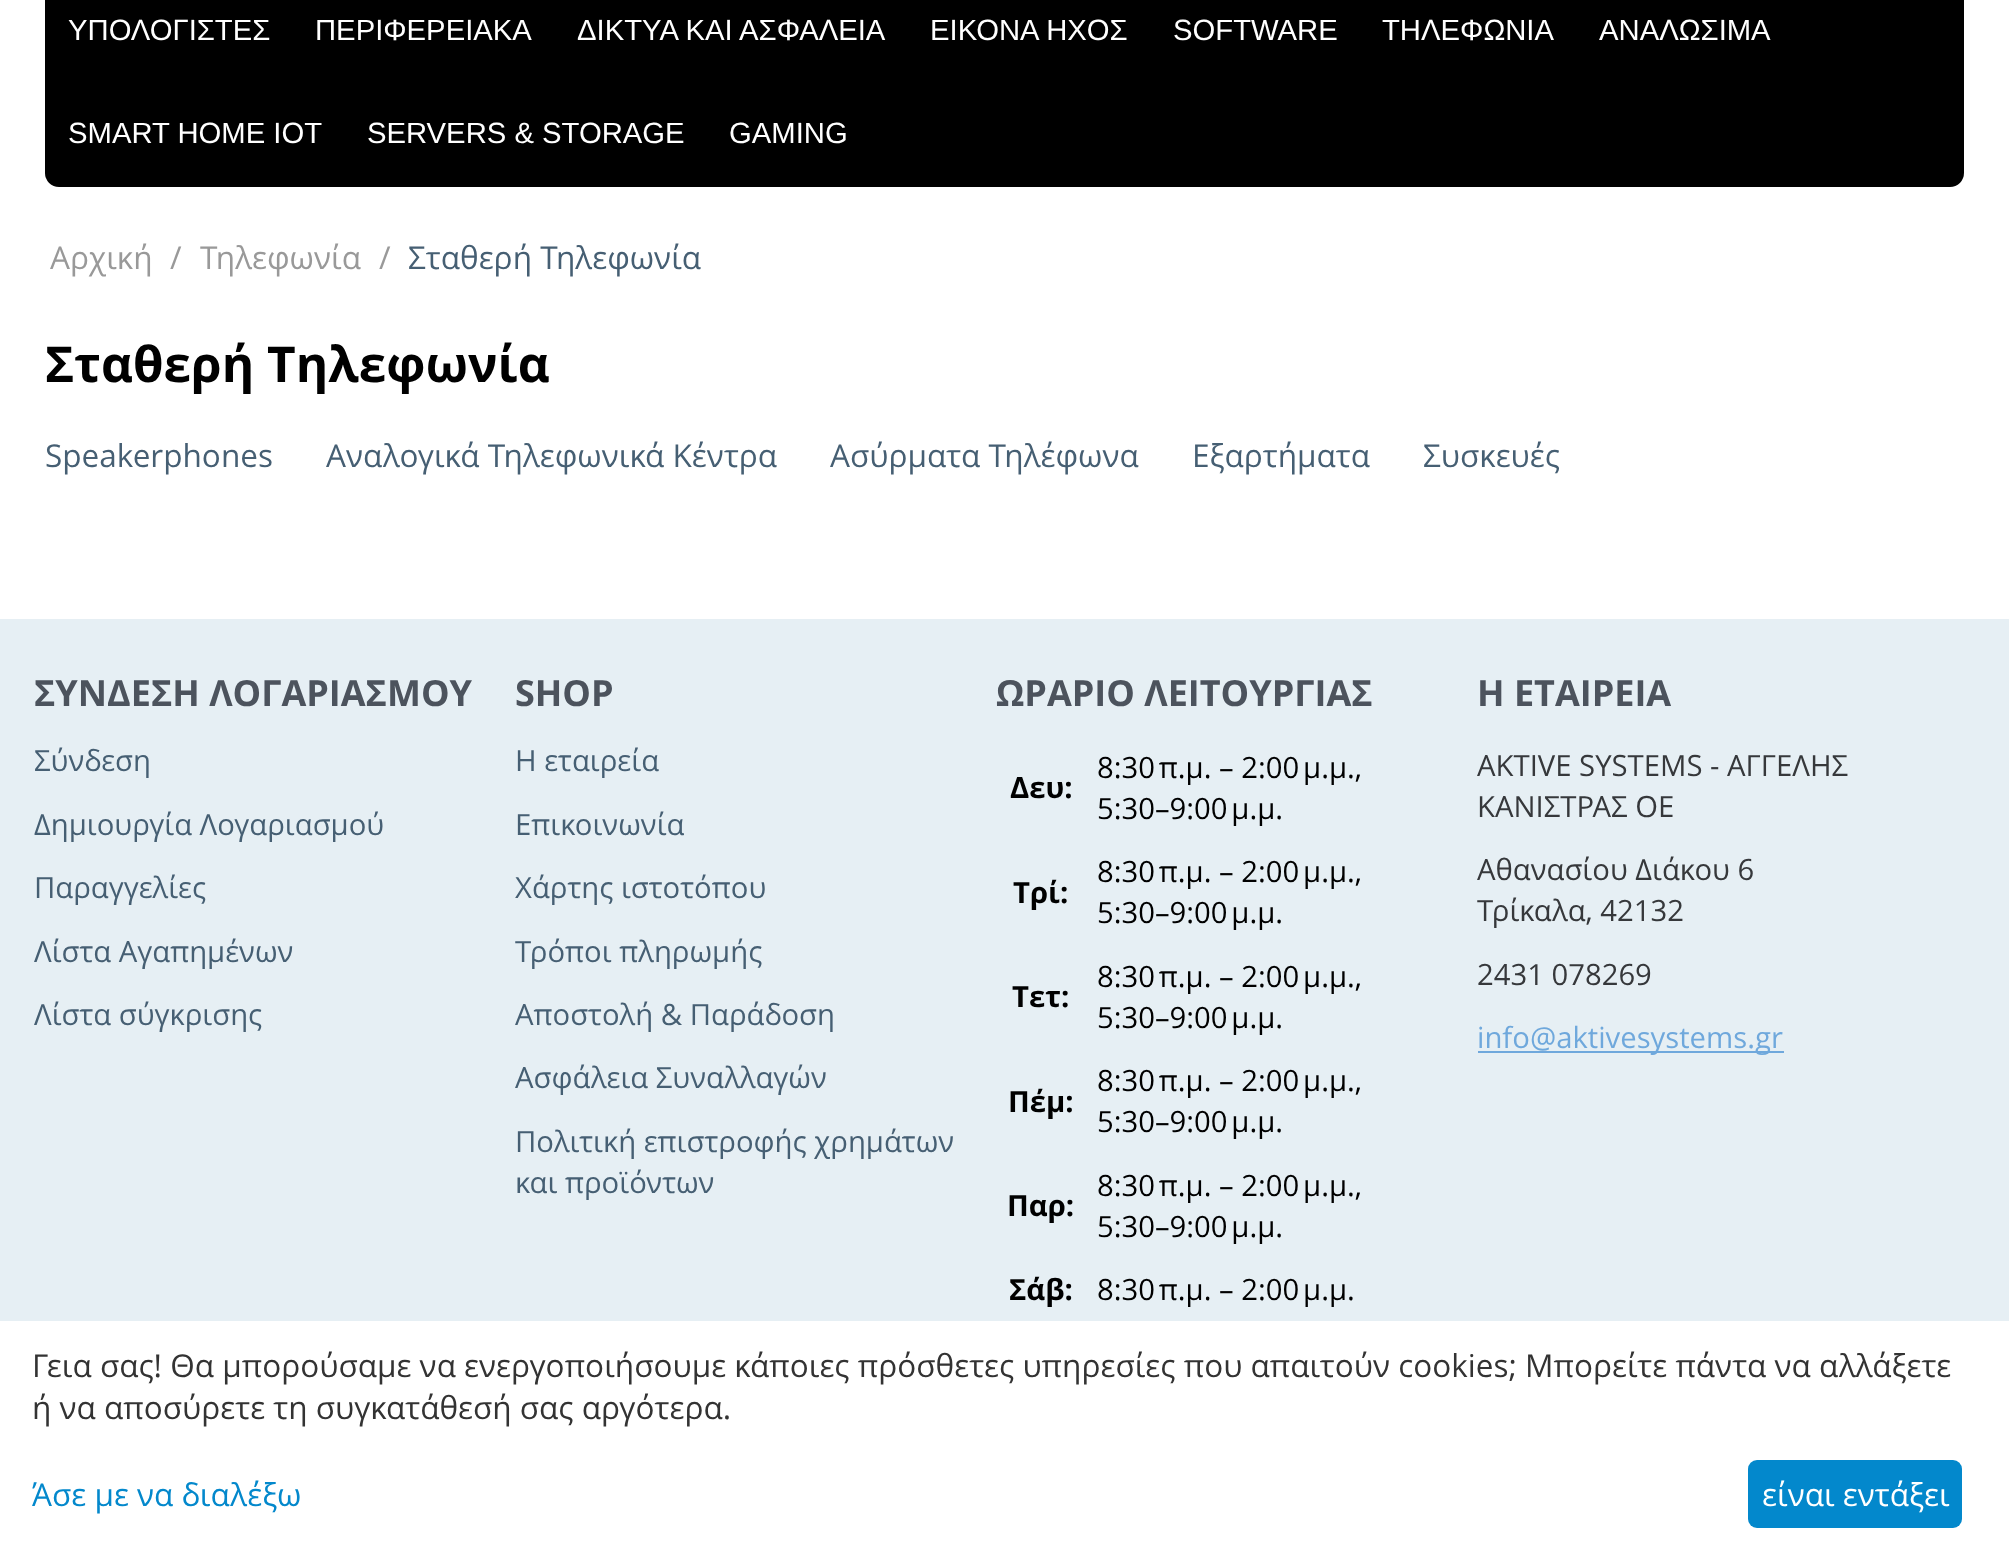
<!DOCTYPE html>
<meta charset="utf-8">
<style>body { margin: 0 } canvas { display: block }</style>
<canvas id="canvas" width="2009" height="1558"></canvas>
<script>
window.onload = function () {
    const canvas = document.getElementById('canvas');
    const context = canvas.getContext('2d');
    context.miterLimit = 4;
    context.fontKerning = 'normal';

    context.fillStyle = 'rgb(255, 255, 255)';
    context.fillRect(0, 0, 2009, 1558);
    context.fillStyle = 'rgb(0, 0, 0)';
    context.beginPath();
    context.roundRect(45, -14, 1919, 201, 14);
    context.fill();
    context.fillStyle = 'rgb(230, 239, 244)';
    context.fillRect(0, 619, 2009, 702);
    context.fillStyle = 'rgb(111, 168, 220)';
    context.fillRect(1478, 1051, 306, 2);
    context.fillStyle = 'rgb(3, 136, 204)';
    context.beginPath();
    context.roundRect(1748, 1460, 214, 68, 9);
    context.fill();
    context.font = '29.25px Liberation Sans';
    context.fillStyle = 'rgb(255, 255, 255)';
    context.fillText('ΥΠΟΛΟΓΙΣΤΕΣ', 68, 40);
    context.fillText('ΠΕΡΙΦΕΡΕΙΑΚΑ', 315, 40);
    context.fillText('ΔΙΚΤΥΑ ΚΑΙ ΑΣΦΑΛΕΙΑ', 577, 40);
    context.fillText('ΕΙΚΟΝΑ ΗΧΟΣ', 930, 40);
    context.fillText('SOFTWARE', 1173, 40);
    context.fillText('ΤΗΛΕΦΩΝΙΑ', 1382, 40);
    context.fillText('ΑΝΑΛΩΣΙΜΑ', 1599, 40);
    context.fillText('SMART HOME IOT', 68, 143);
    context.fillText('SERVERS & STORAGE', 367, 143);
    context.fillText('GAMING', 729, 143);
    context.font = '31.5px Open Sans';
    context.fillStyle = 'rgb(153, 153, 153)';
    context.fillText('Αρχική', 50, 269);
    context.fillText('/', 170, 269);
    context.fillText('Τηλεφωνία', 200, 269);
    context.fillText('/', 379, 269);
    context.fillStyle = 'rgb(70, 95, 115)';
    context.fillText('Σταθερή Τηλεφωνία', 408, 269);
    context.font = 'bold 49.5px Open Sans';
    context.fillStyle = 'rgb(0, 0, 0)';
    context.fillText('Σταθερή Τηλεφωνία', 45, 382);
    context.font = '31.5px Open Sans';
    context.fillStyle = 'rgb(70, 95, 115)';
    context.fillText('Speakerphones', 45, 467);
    context.fillText('Αναλογικά Τηλεφωνικά Κέντρα', 326, 467);
    context.fillText('Ασύρματα Τηλέφωνα', 830, 467);
    context.fillText('Εξαρτήματα', 1192, 467);
    context.fillText('Συσκευές', 1423, 467);
    context.font = 'bold 36px Open Sans';
    context.fillStyle = 'rgb(76, 83, 93)';
    context.fillText('ΣΥΝΔΕΣΗ ΛΟΓΑΡΙΑΣΜΟΥ', 34, 706);
    context.font = '29.25px Open Sans';
    context.fillStyle = 'rgb(70, 95, 115)';
    context.fillText('Σύνδεση', 34, 771);
    context.fillText('Δημιουργία Λογαριασμού', 34, 835);
    context.fillText('Παραγγελίες', 34, 898);
    context.fillText('Λίστα Αγαπημένων', 34, 962);
    context.fillText('Λίστα σύγκρισης', 34, 1025);
    context.font = 'bold 36px Open Sans';
    context.fillStyle = 'rgb(76, 83, 93)';
    context.fillText('SHOP', 515, 706);
    context.font = '29.25px Open Sans';
    context.fillStyle = 'rgb(70, 95, 115)';
    context.fillText('Η εταιρεία', 515, 771);
    context.fillText('Επικοινωνία', 515, 835);
    context.fillText('Χάρτης ιστοτόπου', 515, 898);
    context.fillText('Τρόποι πληρωμής', 515, 962);
    context.fillText('Αποστολή & Παράδοση', 515, 1025);
    context.fillText('Ασφάλεια Συναλλαγών', 515, 1088);
    context.fillText('Πολιτική επιστροφής χρημάτων', 515, 1152);
    context.fillText('και προϊόντων', 515, 1193);
    context.font = 'bold 36px Open Sans';
    context.fillStyle = 'rgb(76, 83, 93)';
    context.fillText('ΩΡΑΡΙΟ ΛΕΙΤΟΥΡΓΙΑΣ', 996, 706);
    context.font = 'bold 29.25px Open Sans';
    context.fillStyle = 'rgb(0, 0, 0)';
    context.fillText('Δευ:', 1010, 798);
    context.font = '29.25px Open Sans';
    context.fillText('8:30 π.μ. – 2:00 μ.μ.,', 1097, 778);
    context.fillText('5:30–9:00 μ.μ.', 1097, 819);
    context.font = 'bold 29.25px Open Sans';
    context.fillText('Τρί:', 1013, 903);
    context.font = '29.25px Open Sans';
    context.fillText('8:30 π.μ. – 2:00 μ.μ.,', 1097, 882);
    context.fillText('5:30–9:00 μ.μ.', 1097, 923);
    context.font = 'bold 29.25px Open Sans';
    context.fillText('Τετ:', 1012, 1007);
    context.font = '29.25px Open Sans';
    context.fillText('8:30 π.μ. – 2:00 μ.μ.,', 1097, 987);
    context.fillText('5:30–9:00 μ.μ.', 1097, 1028);
    context.font = 'bold 29.25px Open Sans';
    context.fillText('Πέμ:', 1008, 1112);
    context.font = '29.25px Open Sans';
    context.fillText('8:30 π.μ. – 2:00 μ.μ.,', 1097, 1091);
    context.fillText('5:30–9:00 μ.μ.', 1097, 1132);
    context.font = 'bold 29.25px Open Sans';
    context.fillText('Παρ:', 1007, 1216);
    context.font = '29.25px Open Sans';
    context.fillText('8:30 π.μ. – 2:00 μ.μ.,', 1097, 1196);
    context.fillText('5:30–9:00 μ.μ.', 1097, 1237);
    context.font = 'bold 29.25px Open Sans';
    context.fillText('Σάβ:', 1009, 1300);
    context.font = '29.25px Open Sans';
    context.fillText('8:30 π.μ. – 2:00 μ.μ.', 1097, 1300);
    context.font = 'bold 36px Open Sans';
    context.fillStyle = 'rgb(76, 83, 93)';
    context.fillText('Η ΕΤΑΙΡΕΙΑ', 1477, 706);
    context.font = '29.25px Open Sans';
    context.fillStyle = 'rgb(54, 56, 59)';
    context.fillText('AKTIVE SYSTEMS - ΑΓΓΕΛΗΣ', 1477, 776);
    context.fillText('ΚΑΝΙΣΤΡΑΣ ΟΕ', 1477, 817);
    context.fillText('Αθανασίου Διάκου 6', 1477, 880);
    context.fillText('Τρίκαλα, 42132', 1477, 921);
    context.fillText('2431 078269', 1477, 985);
    context.fillStyle = 'rgb(111, 168, 220)';
    context.fillText('info@aktivesystems.gr', 1477, 1048);
    context.font = '31.5px Open Sans';
    context.fillStyle = 'rgb(51, 51, 51)';
    context.fillText('Γεια σας! Θα μπορούσαμε να ενεργοποιήσουμε κάποιες πρόσθετες υπηρεσίες που απαιτούν cookies; Μπορείτε πάντα να αλλάξετε', 32, 1377);
    context.fillText('ή να αποσύρετε τη συγκατάθεσή σας αργότερα.', 32, 1419);
    context.fillStyle = 'rgb(3, 136, 204)';
    context.fillText('Άσε με να διαλέξω', 32, 1506);
    context.fillStyle = 'rgb(255, 255, 255)';
    context.fillText('είναι εντάξει', 1762, 1506);
};
</script>
